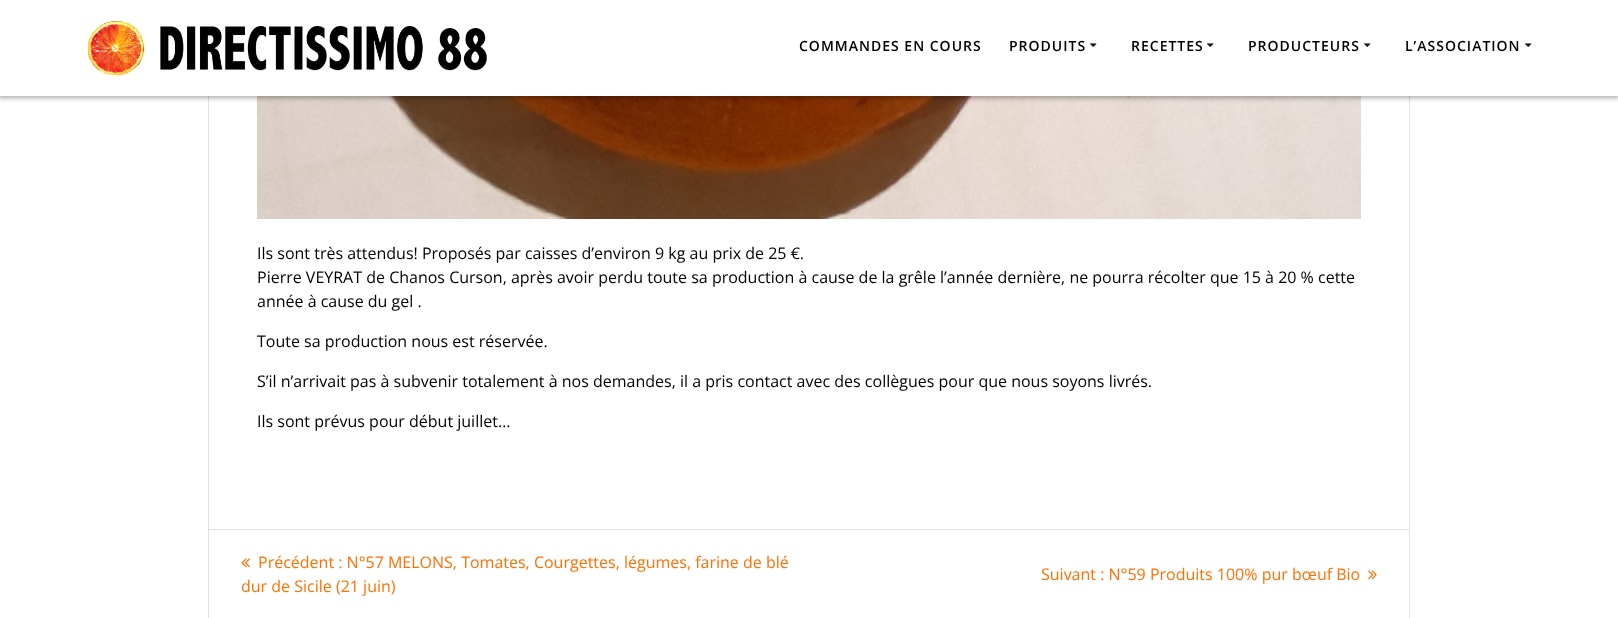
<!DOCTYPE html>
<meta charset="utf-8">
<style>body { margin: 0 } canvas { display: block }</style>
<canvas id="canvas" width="1618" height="618"></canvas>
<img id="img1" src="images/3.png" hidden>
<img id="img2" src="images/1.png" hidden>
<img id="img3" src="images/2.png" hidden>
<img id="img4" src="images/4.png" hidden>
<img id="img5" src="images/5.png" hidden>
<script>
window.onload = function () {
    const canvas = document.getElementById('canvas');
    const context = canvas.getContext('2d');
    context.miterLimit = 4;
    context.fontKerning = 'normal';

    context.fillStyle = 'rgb(255, 255, 255)';
    context.fillRect(0, 0, 1618, 618);
    context.strokeStyle = 'rgb(224, 225, 225)';
    context.strokeRect(208.5, -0.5, 1201, 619);
    context.drawImage(document.getElementById('img1'), 257, 96, 1104, 123);
    context.fillStyle = 'rgba(0, 0, 0, 0.33)';
    context.filter = 'blur(2.5px)';
    context.beginPath();
    context.rect(-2, -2, 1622, 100);
    context.fill();
    context.filter = 'none';
    context.fillStyle = 'rgb(255, 255, 255)';
    context.fillRect(0, 0, 1618, 96);
    context.drawImage(document.getElementById('img2'), 87, 21, 400, 55);
    context.drawImage(document.getElementById('img3'), 1090, 43, 7, 4);
    context.drawImage(document.getElementById('img3'), 1207, 43, 7, 4);
    context.drawImage(document.getElementById('img3'), 1364, 43, 7, 4);
    context.drawImage(document.getElementById('img3'), 1525, 43, 7, 4);
    context.fillStyle = 'rgb(224, 225, 225)';
    context.fillRect(209, 529, 1200, 1);
    context.drawImage(document.getElementById('img4'), 241, 558, 9, 10);
    context.drawImage(document.getElementById('img5'), 1368, 570, 9, 10);
    context.letterSpacing = '1px';
    context.font = '600 14px Open Sans';
    context.fillStyle = 'rgb(0, 0, 0)';
    context.fillText('COMMANDES EN COURS', 799, 51);
    context.fillText('PRODUITS', 1009, 51);
    context.fillText('RECETTES', 1131, 51);
    context.fillText('PRODUCTEURS', 1248, 51);
    context.fillText('L’ASSOCIATION', 1405, 51);
    context.letterSpacing = '0px';
    context.font = '16px Open Sans';
    context.fillText('Ils sont très attendus! Proposés par caisses d’environ 9 kg au prix de 25 €.', 257, 259);
    context.fillText('Pierre VEYRAT de Chanos Curson, après avoir perdu toute sa production à cause de la grêle l’année dernière, ne pourra récolter que 15 à 20 % cette', 257, 283);
    context.fillText('année à cause du gel .', 257, 307);
    context.fillText('Toute sa production nous est réservée.', 257, 347);
    context.fillText('S’il n’arrivait pas à subvenir totalement à nos demandes, il a pris contact avec des collègues pour que nous soyons livrés.', 257, 387);
    context.fillText('Ils sont prévus pour début juillet…', 257, 427);
    context.fillStyle = 'rgb(255, 111, 2)';
    context.fillText('Précédent : N°57 MELONS, Tomates, Courgettes, légumes, farine de blé', 258, 568);
    context.fillText('dur de Sicile (21 juin)', 241, 592);
    context.fillText('Suivant : N°59 Produits 100% pur bœuf Bio', 1041, 580);
};
</script>
